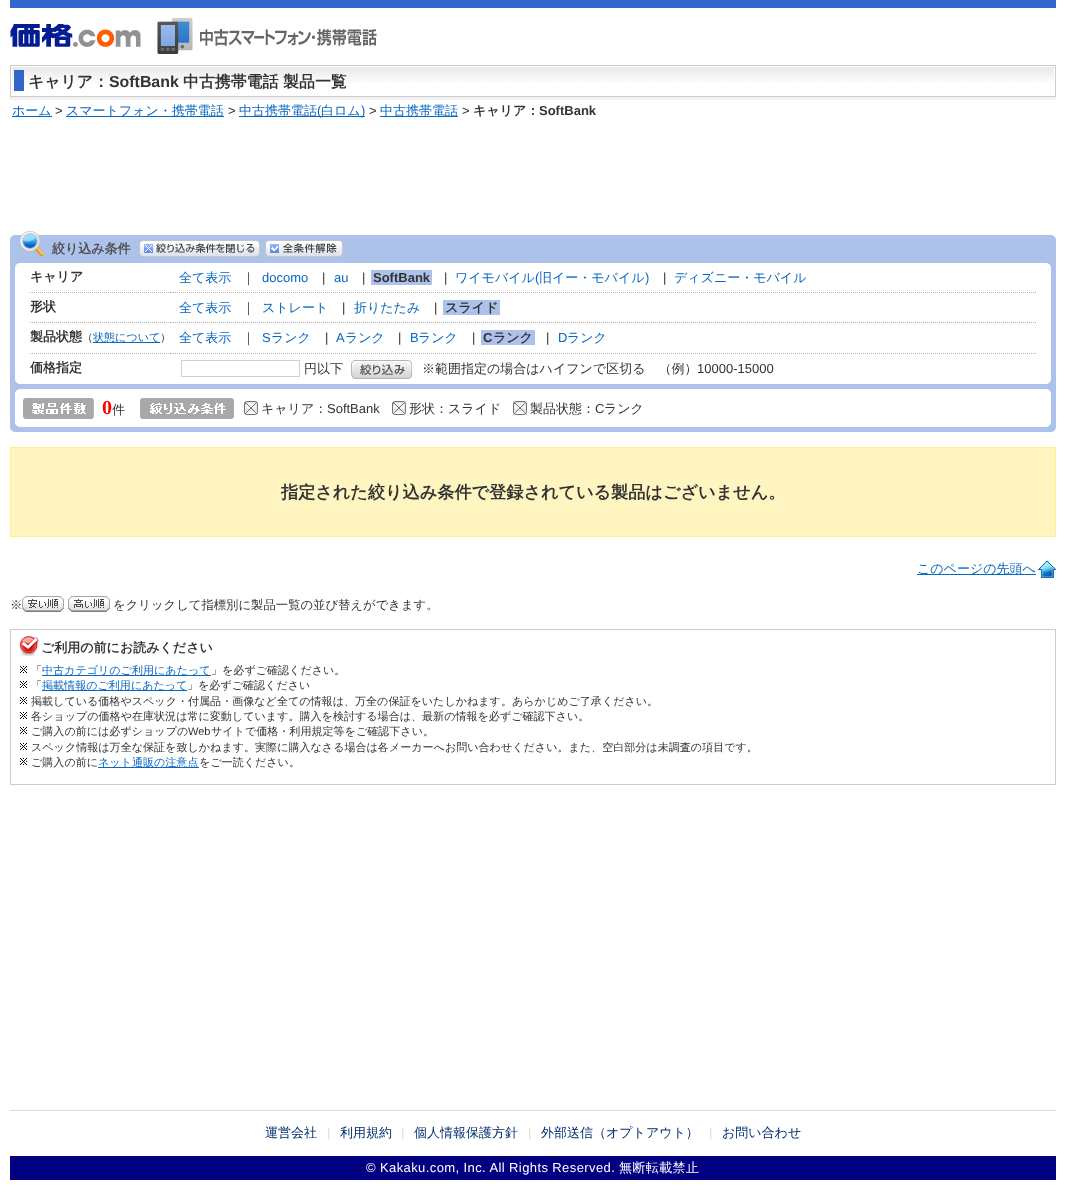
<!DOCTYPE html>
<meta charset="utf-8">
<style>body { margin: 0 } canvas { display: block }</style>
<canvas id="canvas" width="1066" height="1204"></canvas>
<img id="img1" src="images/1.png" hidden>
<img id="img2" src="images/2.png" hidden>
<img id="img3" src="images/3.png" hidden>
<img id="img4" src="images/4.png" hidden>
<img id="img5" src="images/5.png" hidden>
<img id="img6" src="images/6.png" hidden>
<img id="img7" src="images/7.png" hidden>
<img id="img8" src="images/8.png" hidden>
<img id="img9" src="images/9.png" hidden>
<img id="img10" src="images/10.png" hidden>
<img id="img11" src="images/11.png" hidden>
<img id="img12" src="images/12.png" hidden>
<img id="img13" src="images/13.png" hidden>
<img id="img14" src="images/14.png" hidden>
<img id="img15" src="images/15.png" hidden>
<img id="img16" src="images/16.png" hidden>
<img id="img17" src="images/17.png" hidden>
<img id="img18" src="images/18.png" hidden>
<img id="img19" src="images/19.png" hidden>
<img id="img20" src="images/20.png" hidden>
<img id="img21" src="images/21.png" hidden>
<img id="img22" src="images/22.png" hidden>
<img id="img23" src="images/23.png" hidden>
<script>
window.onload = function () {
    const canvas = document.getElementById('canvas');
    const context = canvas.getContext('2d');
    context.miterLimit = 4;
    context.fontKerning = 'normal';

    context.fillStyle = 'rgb(255, 255, 255)';
    context.fillRect(0, 0, 1066, 1204);
    context.fillStyle = 'rgb(50, 102, 204)';
    context.fillRect(10, 0, 1046, 8);
    context.drawImage(document.getElementById('img1'), 10, 24, 131, 23);
    context.drawImage(document.getElementById('img2'), 157, 18, 220, 36);
    context.fillStyle = 'rgb(241, 241, 241)';
    context.fillRect(10, 97, 1046, 3);
    context.strokeStyle = 'rgb(204, 204, 204)';
    context.strokeRect(10.5, 65.5, 1045, 31);
    context.drawImage(document.getElementById('img3'), 12, 67, 1042, 16);
    context.fillStyle = 'rgb(50, 102, 204)';
    context.fillRect(14, 70, 10, 21);
    context.fillStyle = 'rgb(8, 103, 191)';
    context.fillRect(12, 116, 40, 1);
    context.fillRect(66, 116, 158, 1);
    context.fillRect(239, 116, 126, 1);
    context.fillRect(380, 116, 78, 1);
    context.fillStyle = 'rgb(172, 194, 235)';
    context.fillRect(10, 235, 1046, 197);
    context.drawImage(document.getElementById('img4'), 10, 231, 34, 26);
    context.drawImage(document.getElementById('img5'), 139, 240, 121, 17);
    context.drawImage(document.getElementById('img6'), 265, 240, 78, 17);
    context.fillStyle = 'rgb(255, 255, 255)';
    context.fillRect(15, 263, 1036, 121);
    context.drawImage(document.getElementById('img7'), 1046, 235, 10, 32);
    context.drawImage(document.getElementById('img8'), 15, 263, 5, 5);
    context.drawImage(document.getElementById('img9'), 30, 292, 141, 1);
    context.drawImage(document.getElementById('img10'), 171, 292, 865, 1);
    context.fillStyle = 'rgb(172, 194, 235)';
    context.fillRect(371, 270, 61, 15);
    context.drawImage(document.getElementById('img9'), 30, 322, 141, 1);
    context.drawImage(document.getElementById('img10'), 171, 322, 865, 1);
    context.fillRect(443, 300, 57, 15);
    context.drawImage(document.getElementById('img9'), 30, 353, 141, 1);
    context.fillStyle = 'rgb(8, 103, 191)';
    context.fillRect(93, 342, 67, 1);
    context.drawImage(document.getElementById('img10'), 171, 353, 865, 1);
    context.fillStyle = 'rgb(172, 194, 235)';
    context.fillRect(481, 330, 54, 15);
    context.strokeStyle = 'rgb(212, 208, 200)';
    context.strokeRect(181.5, 360.5, 118, 16);
    context.drawImage(document.getElementById('img11'), 351, 360, 61, 19);
    context.fillStyle = 'rgb(255, 255, 255)';
    context.fillRect(15, 389, 1036, 38);
    context.drawImage(document.getElementById('img12'), 15, 379, 5, 15);
    context.drawImage(document.getElementById('img13'), 1046, 380, 5, 14);
    context.drawImage(document.getElementById('img14'), 23, 398, 71, 21);
    context.drawImage(document.getElementById('img15'), 140, 398, 94, 21);
    context.drawImage(document.getElementById('img16'), 244, 401, 14, 14);
    context.drawImage(document.getElementById('img16'), 392, 401, 14, 14);
    context.drawImage(document.getElementById('img16'), 513, 401, 14, 14);
    context.drawImage(document.getElementById('img17'), 10, 423, 10, 9);
    context.drawImage(document.getElementById('img18'), 1046, 423, 10, 9);
    context.fillStyle = 'rgb(255, 245, 192)';
    context.beginPath();
    context.rect(10.5, 447.5, 1045, 89);
    context.fill();
    context.strokeStyle = 'rgb(255, 238, 143)';
    context.stroke();
    context.fillStyle = 'rgb(8, 103, 191)';
    context.fillRect(917, 574, 119, 1);
    context.drawImage(document.getElementById('img19'), 1038, 560, 18, 18);
    context.drawImage(document.getElementById('img20'), 22, 596, 42, 16);
    context.drawImage(document.getElementById('img21'), 68, 596, 42, 16);
    context.strokeStyle = 'rgb(204, 204, 204)';
    context.strokeRect(10.5, 629.5, 1045, 155);
    context.drawImage(document.getElementById('img22'), 19, 636, 20, 20);
    context.drawImage(document.getElementById('img23'), 20, 666, 7, 7);
    context.fillRect(42, 675, 169, 1);
    context.drawImage(document.getElementById('img23'), 20, 681, 7, 7);
    context.fillRect(42, 690, 145, 1);
    context.drawImage(document.getElementById('img23'), 20, 697, 7, 7);
    context.drawImage(document.getElementById('img23'), 20, 712, 7, 7);
    context.drawImage(document.getElementById('img23'), 20, 727, 7, 7);
    context.drawImage(document.getElementById('img23'), 20, 743, 7, 7);
    context.drawImage(document.getElementById('img23'), 20, 758, 7, 7);
    context.fillRect(98, 767, 101, 1);
    context.fillStyle = 'rgb(221, 221, 221)';
    context.fillRect(10, 1110, 1046, 1);
    context.fillStyle = 'rgb(0, 0, 128)';
    context.fillRect(10, 1156, 1046, 24);
    context.font = 'bold 15.9px WenQuanYi Zen Hei';
    context.fillStyle = 'rgb(51, 51, 51)';
    context.fillText('キャリア：', 28, 87);
    context.font = 'bold 15.9px Liberation Sans';
    context.fillText('SoftBank', 109, 87);
    context.font = 'bold 15.9px WenQuanYi Zen Hei';
    context.fillText('中古携帯電話 製品一覧', 183, 87);
    context.font = '500 13px WenQuanYi Zen Hei';
    context.fillStyle = 'rgb(8, 103, 191)';
    context.fillText('ホーム', 12, 115);
    context.font = '13px Liberation Sans';
    context.fillStyle = 'rgb(51, 51, 51)';
    context.fillText('>', 55, 115);
    context.font = '500 13px WenQuanYi Zen Hei';
    context.fillStyle = 'rgb(8, 103, 191)';
    context.fillText('スマートフォン・携帯電話', 66, 115);
    context.font = '13px Liberation Sans';
    context.fillStyle = 'rgb(51, 51, 51)';
    context.fillText('>', 228, 115);
    context.font = '500 13px WenQuanYi Zen Hei';
    context.fillStyle = 'rgb(8, 103, 191)';
    context.fillText('中古携帯電話', 239, 115);
    context.font = '13px Liberation Sans';
    context.fillText('(', 317, 115);
    context.font = '500 13px WenQuanYi Zen Hei';
    context.fillText('白ロム', 321, 115);
    context.font = '13px Liberation Sans';
    context.fillText(')', 361, 115);
    context.fillStyle = 'rgb(51, 51, 51)';
    context.fillText('>', 369, 115);
    context.font = '500 13px WenQuanYi Zen Hei';
    context.fillStyle = 'rgb(8, 103, 191)';
    context.fillText('中古携帯電話', 380, 115);
    context.font = '13px Liberation Sans';
    context.fillStyle = 'rgb(51, 51, 51)';
    context.fillText('>', 462, 115);
    context.font = 'bold 13px WenQuanYi Zen Hei';
    context.fillText('キャリア：', 473, 115);
    context.font = 'bold 13px Liberation Sans';
    context.fillText('SoftBank', 539, 115);
    context.font = 'bold 13px WenQuanYi Zen Hei';
    context.fillStyle = 'rgb(78, 77, 77)';
    context.fillText('絞り込み条件', 52, 253);
    context.fillStyle = 'rgb(51, 51, 51)';
    context.fillText('キャリア', 30, 281);
    context.font = '500 13px WenQuanYi Zen Hei';
    context.fillStyle = 'rgb(8, 103, 191)';
    context.fillText('全て表示', 179, 282);
    context.fillStyle = 'rgb(51, 51, 51)';
    context.fillText('｜', 242, 282);
    context.font = '13px Liberation Sans';
    context.fillStyle = 'rgb(8, 103, 191)';
    context.fillText('docomo', 262, 282);
    context.fillStyle = 'rgb(51, 51, 51)';
    context.fillText('|', 322, 282);
    context.fillStyle = 'rgb(8, 103, 191)';
    context.fillText('au', 334, 282);
    context.fillStyle = 'rgb(51, 51, 51)';
    context.fillText('|', 362, 282);
    context.font = 'bold 13px Liberation Sans';
    context.fillText('SoftBank', 373, 282);
    context.font = '13px Liberation Sans';
    context.fillText('|', 444, 282);
    context.font = '500 13px WenQuanYi Zen Hei';
    context.fillStyle = 'rgb(8, 103, 191)';
    context.fillText('ワイモバイル', 455, 282);
    context.font = '13px Liberation Sans';
    context.fillText('(', 535, 282);
    context.font = '500 13px WenQuanYi Zen Hei';
    context.fillText('旧イー・モバイル', 539, 282);
    context.font = '13px Liberation Sans';
    context.fillText(')', 645, 282);
    context.fillStyle = 'rgb(51, 51, 51)';
    context.fillText('|', 663, 282);
    context.font = '500 13px WenQuanYi Zen Hei';
    context.fillStyle = 'rgb(8, 103, 191)';
    context.fillText('ディズニー・モバイル', 674, 282);
    context.font = 'bold 13px WenQuanYi Zen Hei';
    context.fillStyle = 'rgb(51, 51, 51)';
    context.fillText('形状', 30, 311);
    context.font = '500 13px WenQuanYi Zen Hei';
    context.fillStyle = 'rgb(8, 103, 191)';
    context.fillText('全て表示', 179, 312);
    context.fillStyle = 'rgb(51, 51, 51)';
    context.fillText('｜', 242, 312);
    context.fillStyle = 'rgb(8, 103, 191)';
    context.fillText('ストレート', 262, 312);
    context.font = '13px Liberation Sans';
    context.fillStyle = 'rgb(51, 51, 51)';
    context.fillText('|', 342, 312);
    context.font = '500 13px WenQuanYi Zen Hei';
    context.fillStyle = 'rgb(8, 103, 191)';
    context.fillText('折りたたみ', 354, 312);
    context.font = '13px Liberation Sans';
    context.fillStyle = 'rgb(51, 51, 51)';
    context.fillText('|', 434, 312);
    context.font = 'bold 13px WenQuanYi Zen Hei';
    context.fillText('スライド', 445, 312);
    context.fillText('製品状態', 30, 341);
    context.font = '500 11.05px WenQuanYi Zen Hei';
    context.fillText('（', 82, 341);
    context.fillStyle = 'rgb(8, 103, 191)';
    context.fillText('状態について', 93, 341);
    context.fillStyle = 'rgb(51, 51, 51)';
    context.fillText('）', 160, 341);
    context.font = '500 13px WenQuanYi Zen Hei';
    context.fillStyle = 'rgb(8, 103, 191)';
    context.fillText('全て表示', 179, 342);
    context.fillStyle = 'rgb(51, 51, 51)';
    context.fillText('｜', 242, 342);
    context.font = '13px Liberation Sans';
    context.fillStyle = 'rgb(8, 103, 191)';
    context.fillText('S', 262, 342);
    context.font = '500 13px WenQuanYi Zen Hei';
    context.fillText('ランク', 271, 342);
    context.font = '13px Liberation Sans';
    context.fillStyle = 'rgb(51, 51, 51)';
    context.fillText('|', 325, 342);
    context.fillStyle = 'rgb(8, 103, 191)';
    context.fillText('A', 336, 342);
    context.font = '500 13px WenQuanYi Zen Hei';
    context.fillText('ランク', 345, 342);
    context.font = '13px Liberation Sans';
    context.fillStyle = 'rgb(51, 51, 51)';
    context.fillText('|', 398, 342);
    context.fillStyle = 'rgb(8, 103, 191)';
    context.fillText('B', 410, 342);
    context.font = '500 13px WenQuanYi Zen Hei';
    context.fillText('ランク', 418, 342);
    context.font = '13px Liberation Sans';
    context.fillStyle = 'rgb(51, 51, 51)';
    context.fillText('|', 472, 342);
    context.font = 'bold 13px Liberation Sans';
    context.fillText('C', 483, 342);
    context.font = 'bold 13px WenQuanYi Zen Hei';
    context.fillText('ランク', 493, 342);
    context.font = '13px Liberation Sans';
    context.fillText('|', 546, 342);
    context.fillStyle = 'rgb(8, 103, 191)';
    context.fillText('D', 558, 342);
    context.font = '500 13px WenQuanYi Zen Hei';
    context.fillText('ランク', 567, 342);
    context.font = 'bold 13px WenQuanYi Zen Hei';
    context.fillStyle = 'rgb(51, 51, 51)';
    context.fillText('価格指定', 30, 372);
    context.font = '500 13px WenQuanYi Zen Hei';
    context.fillText('円以下', 304, 373);
    context.fillText('※範囲指定の場合はハイフンで区切る　（例）', 422, 373);
    context.font = '13px Liberation Sans';
    context.fillText('10000-15000', 697, 373);
    context.font = 'bold 20px Liberation Serif';
    context.fillStyle = 'rgb(255, 0, 0)';
    context.fillText('0', 102, 414);
    context.font = '500 13px WenQuanYi Zen Hei';
    context.fillStyle = 'rgb(51, 51, 51)';
    context.fillText('件', 112, 414);
    context.fillText('キャリア：', 261, 413);
    context.font = '13px Liberation Sans';
    context.fillText('SoftBank', 327, 413);
    context.font = '500 13px WenQuanYi Zen Hei';
    context.fillText('形状：スライド', 409, 413);
    context.fillText('製品状態：', 530, 413);
    context.font = '13px Liberation Sans';
    context.fillText('C', 595, 413);
    context.font = '500 13px WenQuanYi Zen Hei';
    context.fillText('ランク', 604, 413);
    context.font = 'bold 17.15px WenQuanYi Zen Hei';
    context.fillText('指定された絞り込み条件で登録されている製品はございません。', 281, 498);
    context.font = '500 13px WenQuanYi Zen Hei';
    context.fillStyle = 'rgb(8, 103, 191)';
    context.fillText('このページの先頭へ', 917, 573);
    context.font = '500 12.35px WenQuanYi Zen Hei';
    context.fillStyle = 'rgb(51, 51, 51)';
    context.fillText('※', 10, 609);
    context.fillText('をクリックして指標別に製品一覧の並び替えができます。', 113, 609);
    context.font = 'bold 13px WenQuanYi Zen Hei';
    context.fillText('ご利用の前にお読みください', 41, 652);
    context.font = '500 11.05px WenQuanYi Zen Hei';
    context.fillText('「', 31, 674);
    context.fillStyle = 'rgb(8, 103, 191)';
    context.fillText('中古カテゴリのご利用にあたって', 42, 674);
    context.fillStyle = 'rgb(51, 51, 51)';
    context.fillText('」を必ずご確認ください。', 211, 674);
    context.fillText('「', 31, 689);
    context.fillStyle = 'rgb(8, 103, 191)';
    context.fillText('掲載情報のご利用にあたって', 42, 689);
    context.fillStyle = 'rgb(51, 51, 51)';
    context.fillText('」を必ずご確認ください', 187, 689);
    context.fillText('掲載している価格やスペック・付属品・画像など全ての情報は、万全の保証をいたしかねます。あらかじめご了承ください。', 31, 705);
    context.fillText('各ショップの価格や在庫状況は常に変動しています。購入を検討する場合は、最新の情報を必ずご確認下さい。', 31, 720);
    context.fillText('ご購入の前には必ずショップの', 31, 735);
    context.font = '11.05px Liberation Sans';
    context.fillText('Web', 188, 735);
    context.font = '500 11.05px WenQuanYi Zen Hei';
    context.fillText('サイトで価格・利用規定等をご確認下さい。', 211, 735);
    context.fillText('スペック情報は万全な保証を致しかねます。実際に購入なさる場合は各メーカーへお問い合わせください。また、空白部分は未調査の項目です。', 31, 751);
    context.fillText('ご購入の前に', 31, 766);
    context.fillStyle = 'rgb(8, 103, 191)';
    context.fillText('ネット通販の注意点', 98, 766);
    context.fillStyle = 'rgb(51, 51, 51)';
    context.fillText('をご一読ください。', 199, 766);
    context.font = '500 13px WenQuanYi Zen Hei';
    context.fillStyle = 'rgb(0, 44, 110)';
    context.fillText('運営会社', 265, 1137);
    context.font = '13px Liberation Sans';
    context.fillStyle = 'rgb(221, 221, 221)';
    context.fillText('|', 327, 1137);
    context.font = '500 13px WenQuanYi Zen Hei';
    context.fillStyle = 'rgb(0, 44, 110)';
    context.fillText('利用規約', 340, 1137);
    context.font = '13px Liberation Sans';
    context.fillStyle = 'rgb(221, 221, 221)';
    context.fillText('|', 401, 1137);
    context.font = '500 13px WenQuanYi Zen Hei';
    context.fillStyle = 'rgb(0, 44, 110)';
    context.fillText('個人情報保護方針', 414, 1137);
    context.font = '13px Liberation Sans';
    context.fillStyle = 'rgb(221, 221, 221)';
    context.fillText('|', 528, 1137);
    context.font = '500 13px WenQuanYi Zen Hei';
    context.fillStyle = 'rgb(0, 44, 110)';
    context.fillText('外部送信（オプトアウト）', 541, 1137);
    context.font = '13px Liberation Sans';
    context.fillStyle = 'rgb(221, 221, 221)';
    context.fillText('|', 709, 1137);
    context.font = '500 13px WenQuanYi Zen Hei';
    context.fillStyle = 'rgb(0, 44, 110)';
    context.fillText('お問い合わせ', 722, 1137);
    context.letterSpacing = '0.4px';
    context.font = '13px Liberation Sans';
    context.fillStyle = 'rgb(255, 255, 255)';
    context.fillText('© Kakaku.com, Inc. All Rights Reserved.', 366, 1172);
    context.font = '500 13px WenQuanYi Zen Hei';
    context.fillText('無断転載禁止', 619, 1172);
};
</script>
